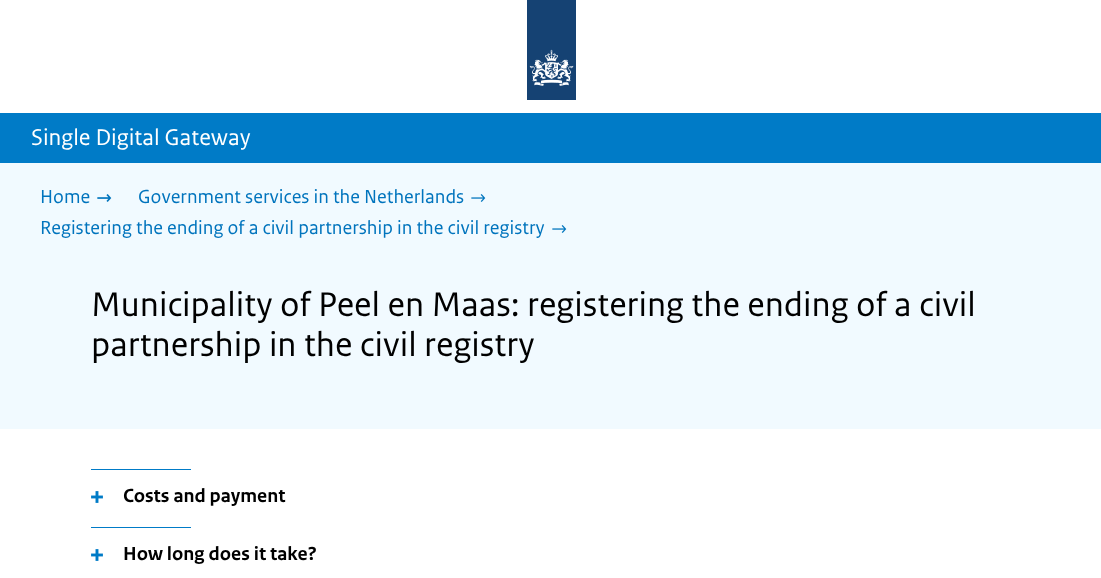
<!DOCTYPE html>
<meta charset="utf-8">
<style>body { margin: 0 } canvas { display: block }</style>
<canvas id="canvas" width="1101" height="578"></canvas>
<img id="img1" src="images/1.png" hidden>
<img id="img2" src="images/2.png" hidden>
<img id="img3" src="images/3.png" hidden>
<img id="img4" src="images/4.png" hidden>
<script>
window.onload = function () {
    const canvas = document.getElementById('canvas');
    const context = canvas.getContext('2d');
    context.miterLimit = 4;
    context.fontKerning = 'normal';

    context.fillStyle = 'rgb(255, 255, 255)';
    context.fillRect(0, 0, 1101, 578);
    context.drawImage(document.getElementById('img1'), 527, 0, 49, 100);
    context.fillStyle = 'rgb(0, 123, 199)';
    context.fillRect(0, 113, 1101, 50);
    context.fillStyle = 'rgb(241, 250, 255)';
    context.fillRect(0, 163, 1101, 266);
    context.drawImage(document.getElementById('img2'), 97, 194, 15, 8);
    context.drawImage(document.getElementById('img3'), 471, 194, 15, 8);
    context.drawImage(document.getElementById('img3'), 552, 225, 15, 8);
    context.fillStyle = 'rgb(0, 123, 199)';
    context.fillRect(91, 469, 100, 1);
    context.drawImage(document.getElementById('img4'), 91, 491, 12, 12);
    context.fillRect(91, 527, 100, 1);
    context.drawImage(document.getElementById('img4'), 91, 549, 12, 12);
    context.font = '24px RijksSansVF';
    context.fillStyle = 'rgb(255, 255, 255)';
    context.fillText('Single Digital Gateway', 31, 145);
    context.font = '20px RijksSansVF';
    context.fillStyle = 'rgb(0, 116, 189)';
    context.fillText('Home', 40, 203);
    context.fillText('Government services in the Netherlands', 138, 203);
    context.fillText('Registering the ending of a civil partnership in the civil registry', 40, 234);
    context.font = '36px RijksSansVF';
    context.fillStyle = 'rgb(0, 0, 0)';
    context.fillText('Municipality of Peel en Maas: registering the ending of a civil', 91, 316);
    context.fillText('partnership in the civil registry', 91, 356);
    context.font = 'bold 20px RijksSansVF';
    context.fillText('Costs and payment', 123, 502);
    context.fillText('How long does it take?', 123, 560);
};
</script>
